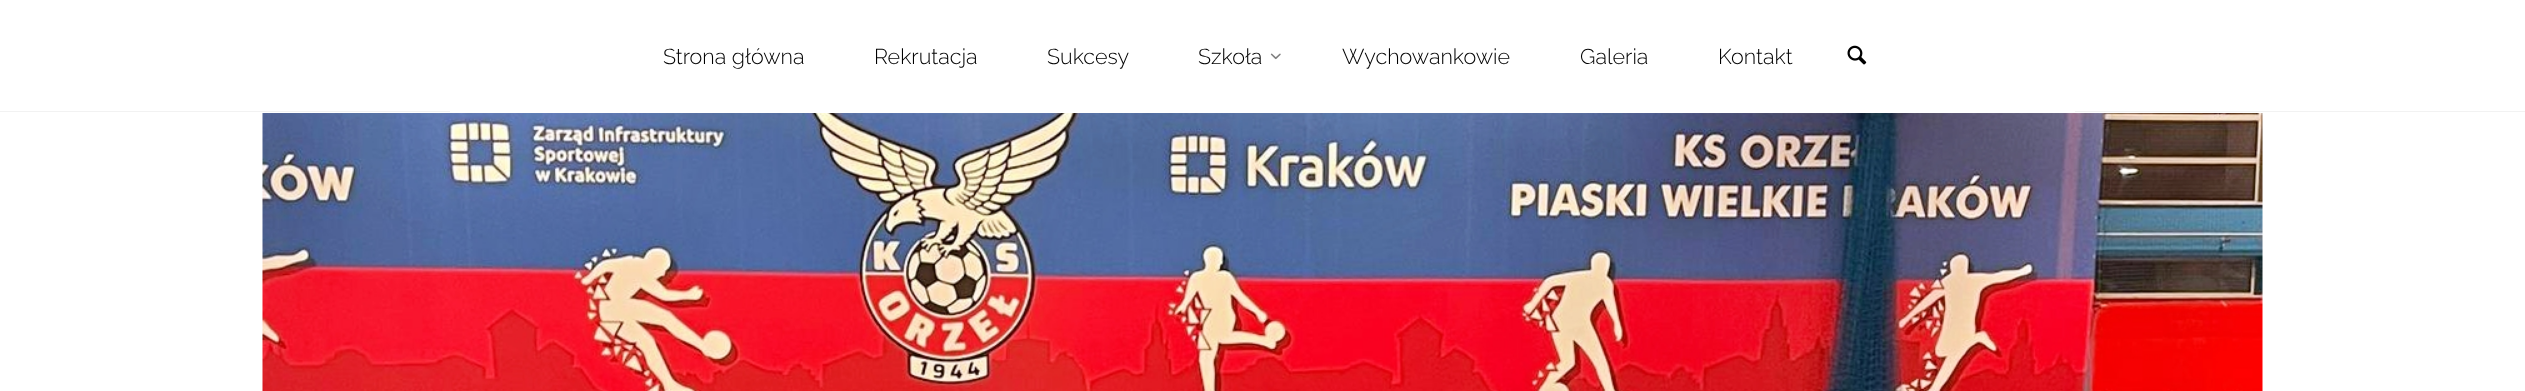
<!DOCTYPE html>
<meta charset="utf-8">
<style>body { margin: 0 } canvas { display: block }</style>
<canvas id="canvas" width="2525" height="391"></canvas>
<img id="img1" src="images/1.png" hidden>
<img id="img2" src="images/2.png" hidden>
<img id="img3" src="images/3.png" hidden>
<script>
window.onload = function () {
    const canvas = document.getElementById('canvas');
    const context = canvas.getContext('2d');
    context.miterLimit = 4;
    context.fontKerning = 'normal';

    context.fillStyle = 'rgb(255, 255, 255)';
    context.fillRect(0, 0, 2525, 391);
    context.fillStyle = 'rgb(242, 242, 242)';
    context.fillRect(0, 111, 2525, 1);
    context.drawImage(document.getElementById('img1'), 1270, 53, 11, 7);
    context.drawImage(document.getElementById('img2'), 1847, 45, 20, 20);
    context.fillStyle = 'rgb(255, 255, 255)';
    context.fillRect(450, 111, 1625, 1);
    context.drawImage(document.getElementById('img3'), 262, 113, 2001, 278);
    context.font = '300 21.5px Raleway';
    context.fillStyle = 'rgb(0, 0, 0)';
    context.fillText('Strona główna', 663, 64);
    context.fillText('Rekrutacja', 874, 64);
    context.fillText('Sukcesy', 1047, 64);
    context.fillText('Szkoła', 1198, 64);
    context.fillText('Wychowankowie', 1342, 64);
    context.fillText('Galeria', 1580, 64);
    context.fillText('Kontakt', 1718, 64);
};
</script>
